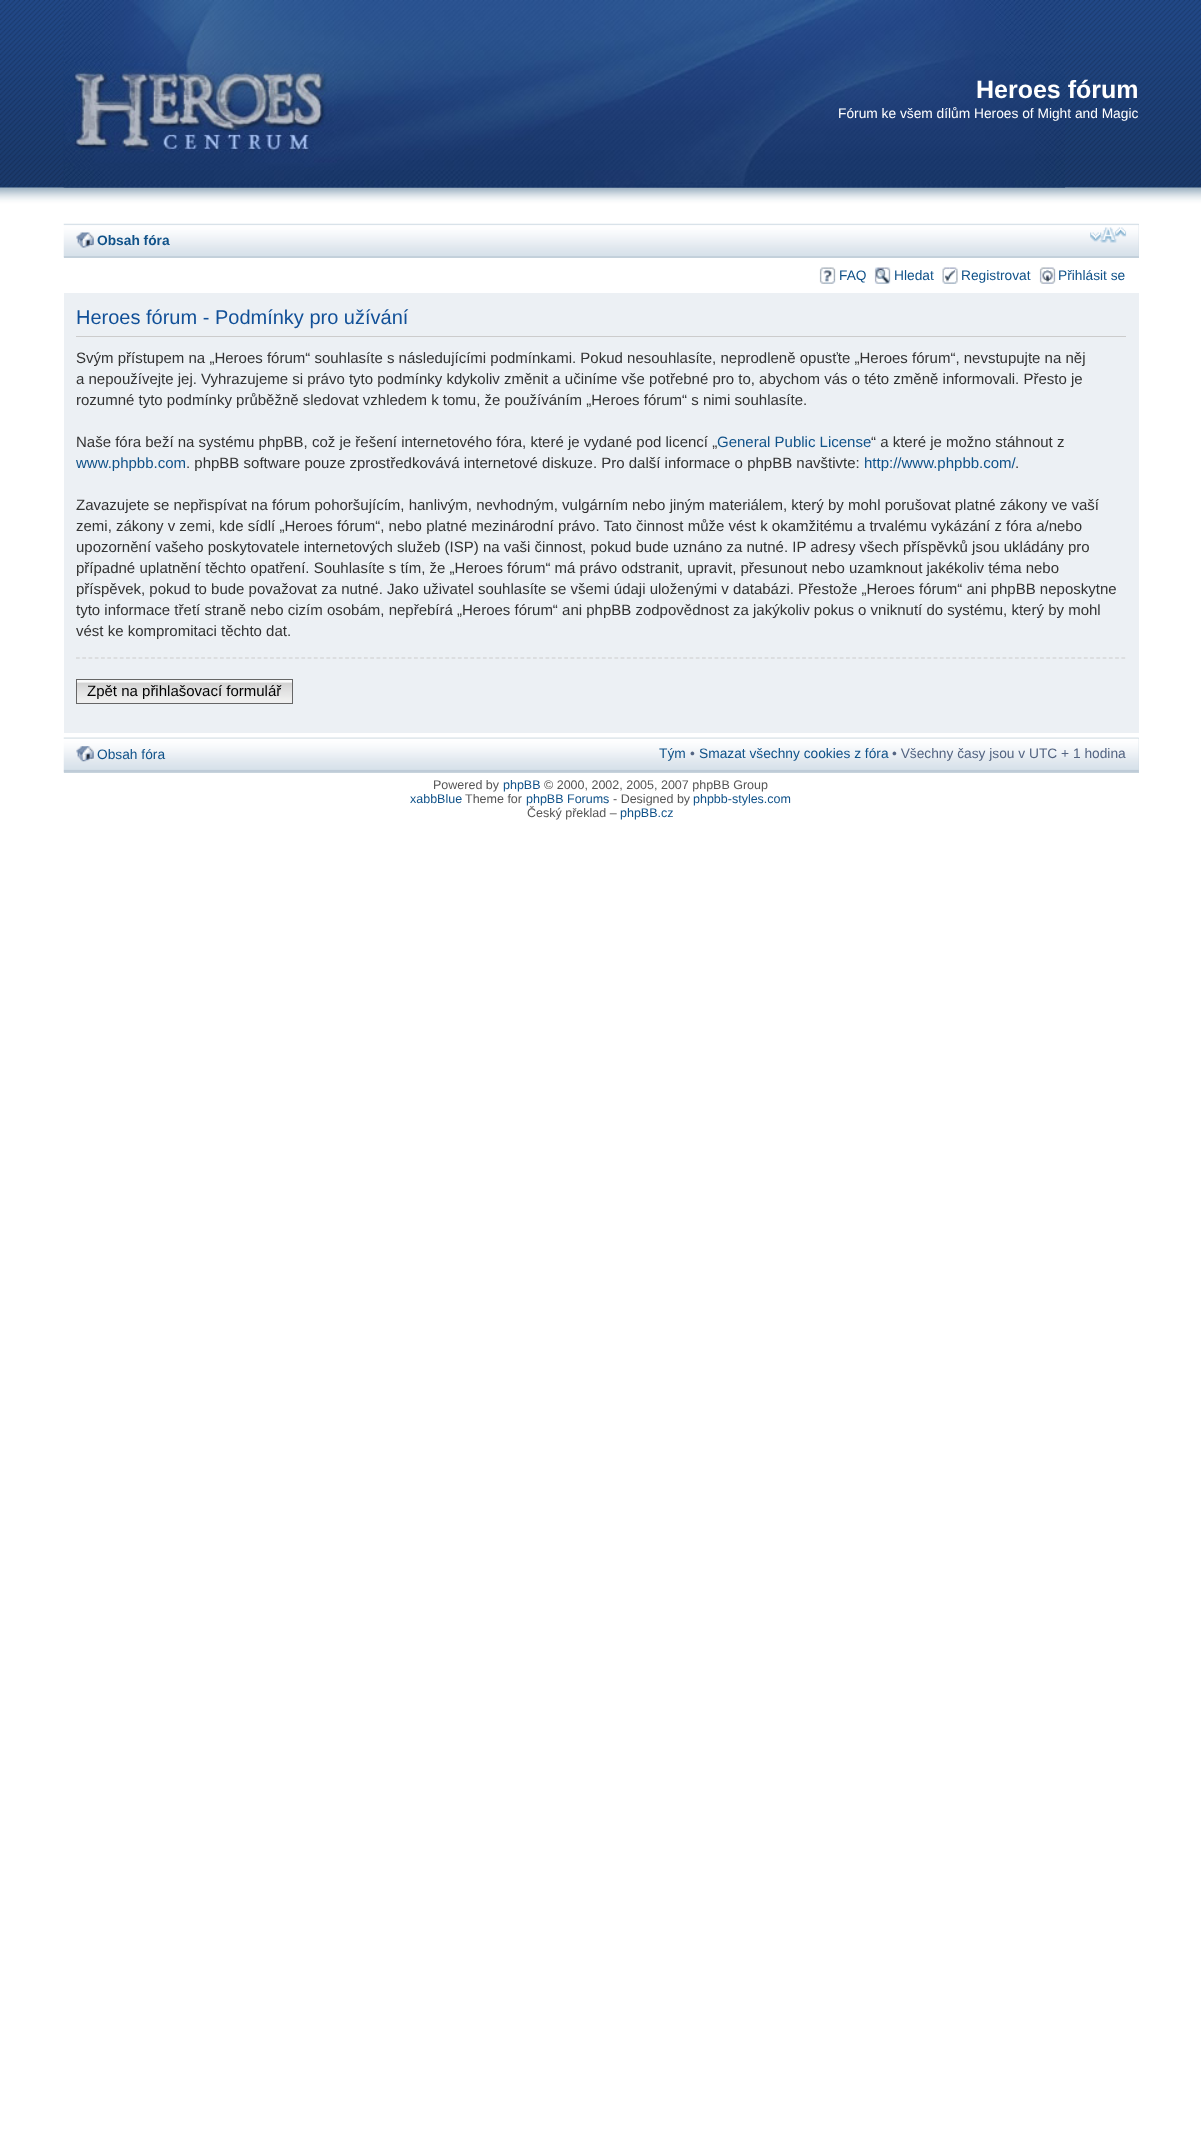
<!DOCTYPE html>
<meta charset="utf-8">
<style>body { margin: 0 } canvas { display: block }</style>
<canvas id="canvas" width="1201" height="2131"></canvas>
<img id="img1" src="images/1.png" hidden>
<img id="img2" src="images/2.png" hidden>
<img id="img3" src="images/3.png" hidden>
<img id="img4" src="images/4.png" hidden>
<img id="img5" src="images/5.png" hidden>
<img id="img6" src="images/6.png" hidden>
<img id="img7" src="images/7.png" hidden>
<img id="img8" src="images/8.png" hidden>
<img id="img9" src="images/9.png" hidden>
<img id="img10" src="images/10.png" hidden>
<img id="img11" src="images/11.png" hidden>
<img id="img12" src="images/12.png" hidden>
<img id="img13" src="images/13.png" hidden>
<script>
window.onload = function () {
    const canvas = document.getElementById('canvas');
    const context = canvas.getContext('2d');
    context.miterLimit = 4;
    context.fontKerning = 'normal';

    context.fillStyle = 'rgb(255, 255, 255)';
    context.fillRect(0, 0, 1201, 2131);
    context.drawImage(document.getElementById('img1'), 0, 0, 1201, 219);
    context.drawImage(document.getElementById('img2'), 63, 0, 1002, 188);
    context.drawImage(document.getElementById('img3'), 64, 63, 273, 105);
    context.fillStyle = 'rgb(200, 212, 221)';
    context.fillRect(64, 224, 1075, 34);
    context.drawImage(document.getElementById('img4'), 63, 223, 1076, 35);
    context.drawImage(document.getElementById('img5'), 76, 232, 18, 16);
    context.drawImage(document.getElementById('img6'), 1090, 227, 37, 16);
    context.drawImage(document.getElementById('img7'), 819, 267, 17, 17);
    context.drawImage(document.getElementById('img8'), 874, 267, 17, 17);
    context.drawImage(document.getElementById('img9'), 942, 267, 16, 17);
    context.drawImage(document.getElementById('img10'), 1039, 267, 17, 17);
    context.fillStyle = 'rgb(236, 240, 244)';
    context.fillRect(64, 293, 1075, 440);
    context.fillStyle = 'rgb(204, 204, 204)';
    context.fillRect(76, 336, 1050, 1);
    context.beginPath();
    context.moveTo(76, 658);
    context.lineTo(1126, 658);
    context.strokeStyle = 'rgb(204, 204, 204)';
    context.lineWidth = 1.2;
    context.setLineDash([3.75, 2.51]);
    context.stroke();
    context.drawImage(document.getElementById('img11'), 77, 682, 215, 21);
    context.fillStyle = 'rgb(250, 250, 250)';
    context.fillRect(77, 680, 215, 2);
    context.strokeStyle = 'rgb(102, 102, 102)';
    context.lineWidth = 1;
    context.setLineDash([]);
    context.strokeRect(76.5, 679.5, 216, 24);
    context.fillStyle = 'rgb(200, 212, 221)';
    context.fillRect(64, 738, 1075, 35);
    context.drawImage(document.getElementById('img12'), 63, 737, 1076, 36);
    context.drawImage(document.getElementById('img13'), 76, 746, 18, 16);
    context.font = 'bold 25px Liberation Sans';
    context.fillStyle = 'rgb(255, 255, 255)';
    context.fillText('Heroes fórum', 976, 98);
    context.font = '13.75px Liberation Sans';
    context.fillText('Fórum ke všem dílům Heroes of Might and Magic', 838, 118);
    context.font = 'bold 13.75px Liberation Sans';
    context.fillStyle = 'rgb(16, 82, 137)';
    context.fillText('Obsah fóra', 97, 245);
    context.font = '13.75px Liberation Sans';
    context.fillText('FAQ', 839, 280);
    context.fillText('Hledat', 894, 280);
    context.fillText('Registrovat', 961, 280);
    context.fillText('Přihlásit se', 1058, 280);
    context.font = '20px Liberation Sans';
    context.fillStyle = 'rgb(17, 80, 152)';
    context.fillText('Heroes fórum - Podmínky pro užívání', 76, 324);
    context.font = '15px Liberation Sans';
    context.fillStyle = 'rgb(51, 51, 51)';
    context.fillText('Svým přístupem na „Heroes fórum“ souhlasíte s následujícími podmínkami. Pokud nesouhlasíte, neprodleně opusťte „Heroes fórum“, nevstupujte na něj', 76, 363);
    context.fillText('a nepoužívejte jej. Vyhrazujeme si právo tyto podmínky kdykoliv změnit a učiníme vše potřebné pro to, abychom vás o této změně informovali. Přesto je', 76, 384);
    context.fillText('rozumné tyto podmínky průběžně sledovat vzhledem k tomu, že používáním „Heroes fórum“ s nimi souhlasíte.', 76, 405);
    context.fillText('Naše fóra beží na systému phpBB, což je řešení internetového fóra, které je vydané pod licencí „', 76, 447);
    context.fillStyle = 'rgb(16, 82, 137)';
    context.fillText('General Public License', 717, 447);
    context.fillStyle = 'rgb(51, 51, 51)';
    context.fillText('“ a které je možno stáhnout z', 871, 447);
    context.fillStyle = 'rgb(16, 82, 137)';
    context.fillText('www.phpbb.com', 76, 468);
    context.fillStyle = 'rgb(51, 51, 51)';
    context.fillText('. phpBB software pouze zprostředkovává internetové diskuze. Pro další informace o phpBB navštivte:', 186, 468);
    context.fillStyle = 'rgb(16, 82, 137)';
    context.fillText('http://www.phpbb.com/', 864, 468);
    context.fillStyle = 'rgb(51, 51, 51)';
    context.fillText('.', 1015, 468);
    context.fillText('Zavazujete se nepřispívat na fórum pohoršujícím, hanlivým, nevhodným, vulgárním nebo jiným materiálem, který by mohl porušovat platné zákony ve vaší', 76, 510);
    context.fillText('zemi, zákony v zemi, kde sídlí „Heroes fórum“, nebo platné mezinárodní právo. Tato činnost může vést k okamžitému a trvalému vykázání z fóra a/nebo', 76, 531);
    context.fillText('upozornění vašeho poskytovatele internetových služeb (ISP) na vaši činnost, pokud bude uznáno za nutné. IP adresy všech příspěvků jsou ukládány pro', 76, 552);
    context.fillText('případné uplatnění těchto opatření. Souhlasíte s tím, že „Heroes fórum“ má právo odstranit, upravit, přesunout nebo uzamknout jakékoliv téma nebo', 76, 573);
    context.fillText('příspěvek, pokud to bude považovat za nutné. Jako uživatel souhlasíte se všemi údaji uloženými v databázi. Přestože „Heroes fórum“ ani phpBB neposkytne', 76, 594);
    context.fillText('tyto informace třetí straně nebo cizím osobám, nepřebírá „Heroes fórum“ ani phpBB zodpovědnost za jakýkoliv pokus o vniknutí do systému, který by mohl', 76, 615);
    context.fillText('vést ke kompromitaci těchto dat.', 76, 636);
    context.fillStyle = 'rgb(0, 0, 0)';
    context.fillText('Zpět na přihlašovací formulář', 87, 696);
    context.font = '13.75px Liberation Sans';
    context.fillStyle = 'rgb(16, 82, 137)';
    context.fillText('Obsah fóra', 97, 759);
    context.fillText('Tým', 659, 758);
    context.fillStyle = 'rgb(83, 100, 130)';
    context.fillText('•', 690, 758);
    context.fillStyle = 'rgb(16, 82, 137)';
    context.fillText('Smazat všechny cookies z fóra', 699, 758);
    context.fillStyle = 'rgb(83, 100, 130)';
    context.fillText('• Všechny časy jsou v UTC + 1 hodina', 892, 758);
    context.font = '12.5px Liberation Sans';
    context.fillStyle = 'rgb(85, 85, 85)';
    context.fillText('Powered by', 433, 789);
    context.fillStyle = 'rgb(16, 82, 137)';
    context.fillText('phpBB', 503, 789);
    context.fillStyle = 'rgb(85, 85, 85)';
    context.fillText('© 2000, 2002, 2005, 2007 phpBB Group', 544, 789);
    context.fillStyle = 'rgb(16, 82, 137)';
    context.fillText('xabbBlue', 410, 803);
    context.fillStyle = 'rgb(85, 85, 85)';
    context.fillText('Theme for', 465, 803);
    context.fillStyle = 'rgb(16, 82, 137)';
    context.fillText('phpBB Forums', 526, 803);
    context.fillStyle = 'rgb(85, 85, 85)';
    context.fillText('- Designed by', 613, 803);
    context.fillStyle = 'rgb(16, 82, 137)';
    context.fillText('phpbb-styles.com', 693, 803);
    context.fillStyle = 'rgb(85, 85, 85)';
    context.fillText('Český překlad –', 527, 817);
    context.fillStyle = 'rgb(16, 82, 137)';
    context.fillText('phpBB.cz', 620, 817);
};
</script>
